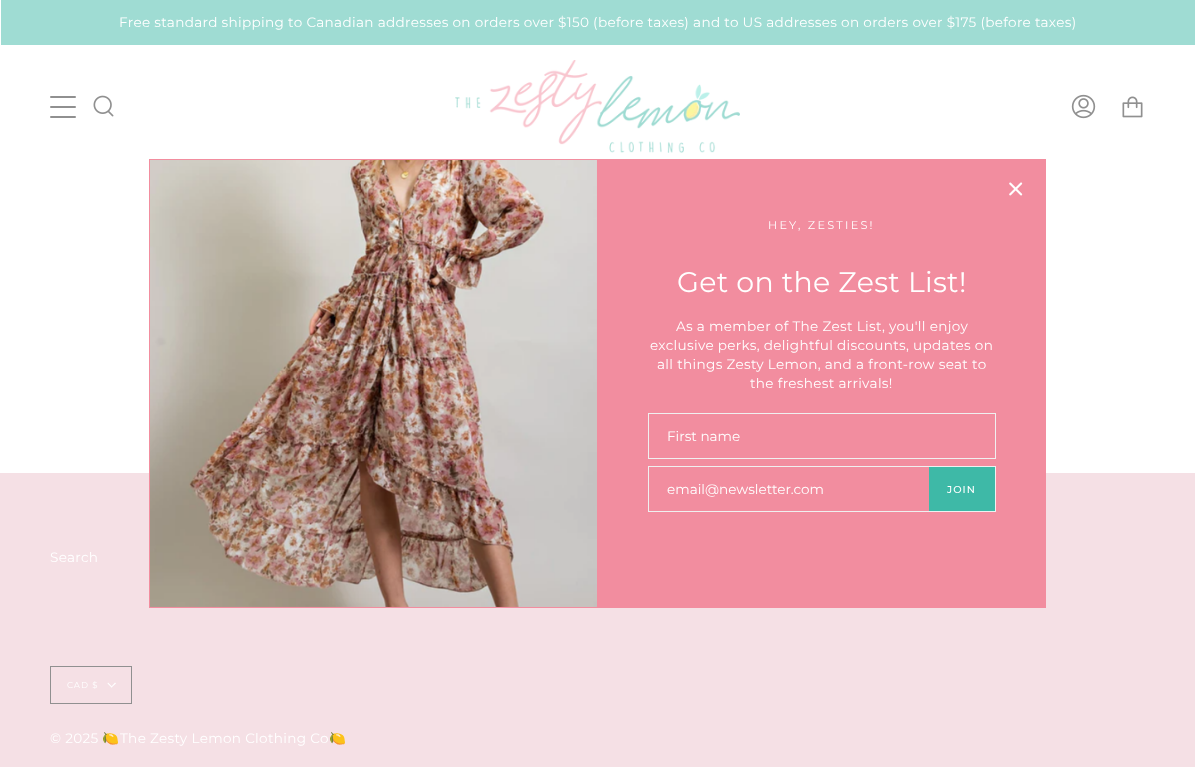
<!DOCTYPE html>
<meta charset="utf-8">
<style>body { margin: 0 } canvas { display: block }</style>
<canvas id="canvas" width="1195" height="767"></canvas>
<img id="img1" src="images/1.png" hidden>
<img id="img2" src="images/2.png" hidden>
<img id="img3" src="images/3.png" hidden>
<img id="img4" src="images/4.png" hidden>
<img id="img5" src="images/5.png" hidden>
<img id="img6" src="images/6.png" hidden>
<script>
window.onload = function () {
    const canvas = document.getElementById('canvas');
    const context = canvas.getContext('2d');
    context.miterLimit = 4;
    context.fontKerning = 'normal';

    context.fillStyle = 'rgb(255, 255, 255)';
    context.fillRect(0, 0, 1195, 767);
    context.fillStyle = 'rgb(159, 220, 211)';
    context.fillRect(1, 0, 1194, 45);
    context.fillStyle = 'rgb(144, 144, 144)';
    context.beginPath();
    context.roundRect(50, 96, 26, 2, 1);
    context.fill();
    context.beginPath();
    context.roundRect(50, 106, 26, 2, 1);
    context.fill();
    context.beginPath();
    context.roundRect(50, 116, 26, 2, 1);
    context.fill();
    context.drawImage(document.getElementById('img1'), 93, 95, 21, 22);
    context.drawImage(document.getElementById('img2'), 455, 60, 285, 93);
    context.drawImage(document.getElementById('img3'), 1071, 94, 25, 25);
    context.drawImage(document.getElementById('img4'), 1122, 96, 21, 22);
    context.fillStyle = 'rgb(245, 224, 229)';
    context.fillRect(0, 473, 1195, 294);
    context.fillStyle = 'rgb(242, 141, 159)';
    context.fillRect(149, 159, 897, 449);
    context.drawImage(document.getElementById('img5'), 1009, 182, 14, 14);
    context.drawImage(document.getElementById('img6'), 150, 160, 447, 447);
    context.strokeStyle = 'rgb(240, 240, 240)';
    context.strokeRect(648.5, 413.5, 347, 45);
    context.strokeRect(648.5, 466.5, 347, 45);
    context.fillStyle = 'rgb(62, 185, 167)';
    context.fillRect(929, 467, 66, 44);
    context.strokeStyle = 'rgb(144, 144, 144)';
    context.strokeRect(50.5, 666.5, 81, 37);
    context.fillStyle = 'rgb(255, 255, 255)';
    context.beginPath();
    context.moveTo(111, 687);
    context.lineTo(115, 682.5);
    context.lineTo(116, 683.5);
    context.lineTo(111.5, 687.5);
    context.closePath();
    context.fill();
    context.beginPath();
    context.moveTo(107.5, 683.5);
    context.lineTo(108, 682.5);
    context.lineTo(112.5, 687);
    context.lineTo(111.5, 687.5);
    context.closePath();
    context.fill();
    context.letterSpacing = '0.32px';
    context.font = '13.6px Montserrat';
    context.fillText('Free standard shipping to Canadian addresses on orders over $150 (before taxes) and to US addresses on orders over $175 (before taxes)', 119, 27);
    context.letterSpacing = '2.25px';
    context.font = '11.25px Montserrat';
    context.fillText('HEY, ZESTIES!', 768, 229);
    context.letterSpacing = '0.32px';
    context.font = '28.4px Montserrat';
    context.fillText('Get on the Zest List!', 677, 292);
    context.font = '13.6px Montserrat';
    context.fillText('As a member of The Zest List, you\'ll enjoy', 676, 331);
    context.fillText('exclusive perks, delightful discounts, updates on', 650, 350);
    context.fillText('all things Zesty Lemon, and a front-row seat to', 657, 369);
    context.fillText('the freshest arrivals!', 750, 388);
    context.letterSpacing = '0px';
    context.fillText('First name', 667, 441);
    context.fillText('email@newsletter.com', 667, 494);
    context.letterSpacing = '1px';
    context.font = '500 10px Montserrat';
    context.fillText('JOIN', 947, 493);
    context.letterSpacing = '0.32px';
    context.font = '13.6px Montserrat';
    context.fillText('Search', 50, 562);
    context.letterSpacing = '1px';
    context.font = '8.5px Montserrat';
    context.fillText('CAD $', 67, 688);
    context.letterSpacing = '0.32px';
    context.font = '13.6px Montserrat';
    context.fillText('© 2025', 50, 743);
    context.font = '13.6px Noto Color Emoji';
    context.fillText('🍋', 102, 743);
    context.font = '13.6px Montserrat';
    context.fillText('The Zesty Lemon Clothing Co', 120, 743);
    context.font = '13.6px Noto Color Emoji';
    context.fillText('🍋', 329, 743);
};
</script>
